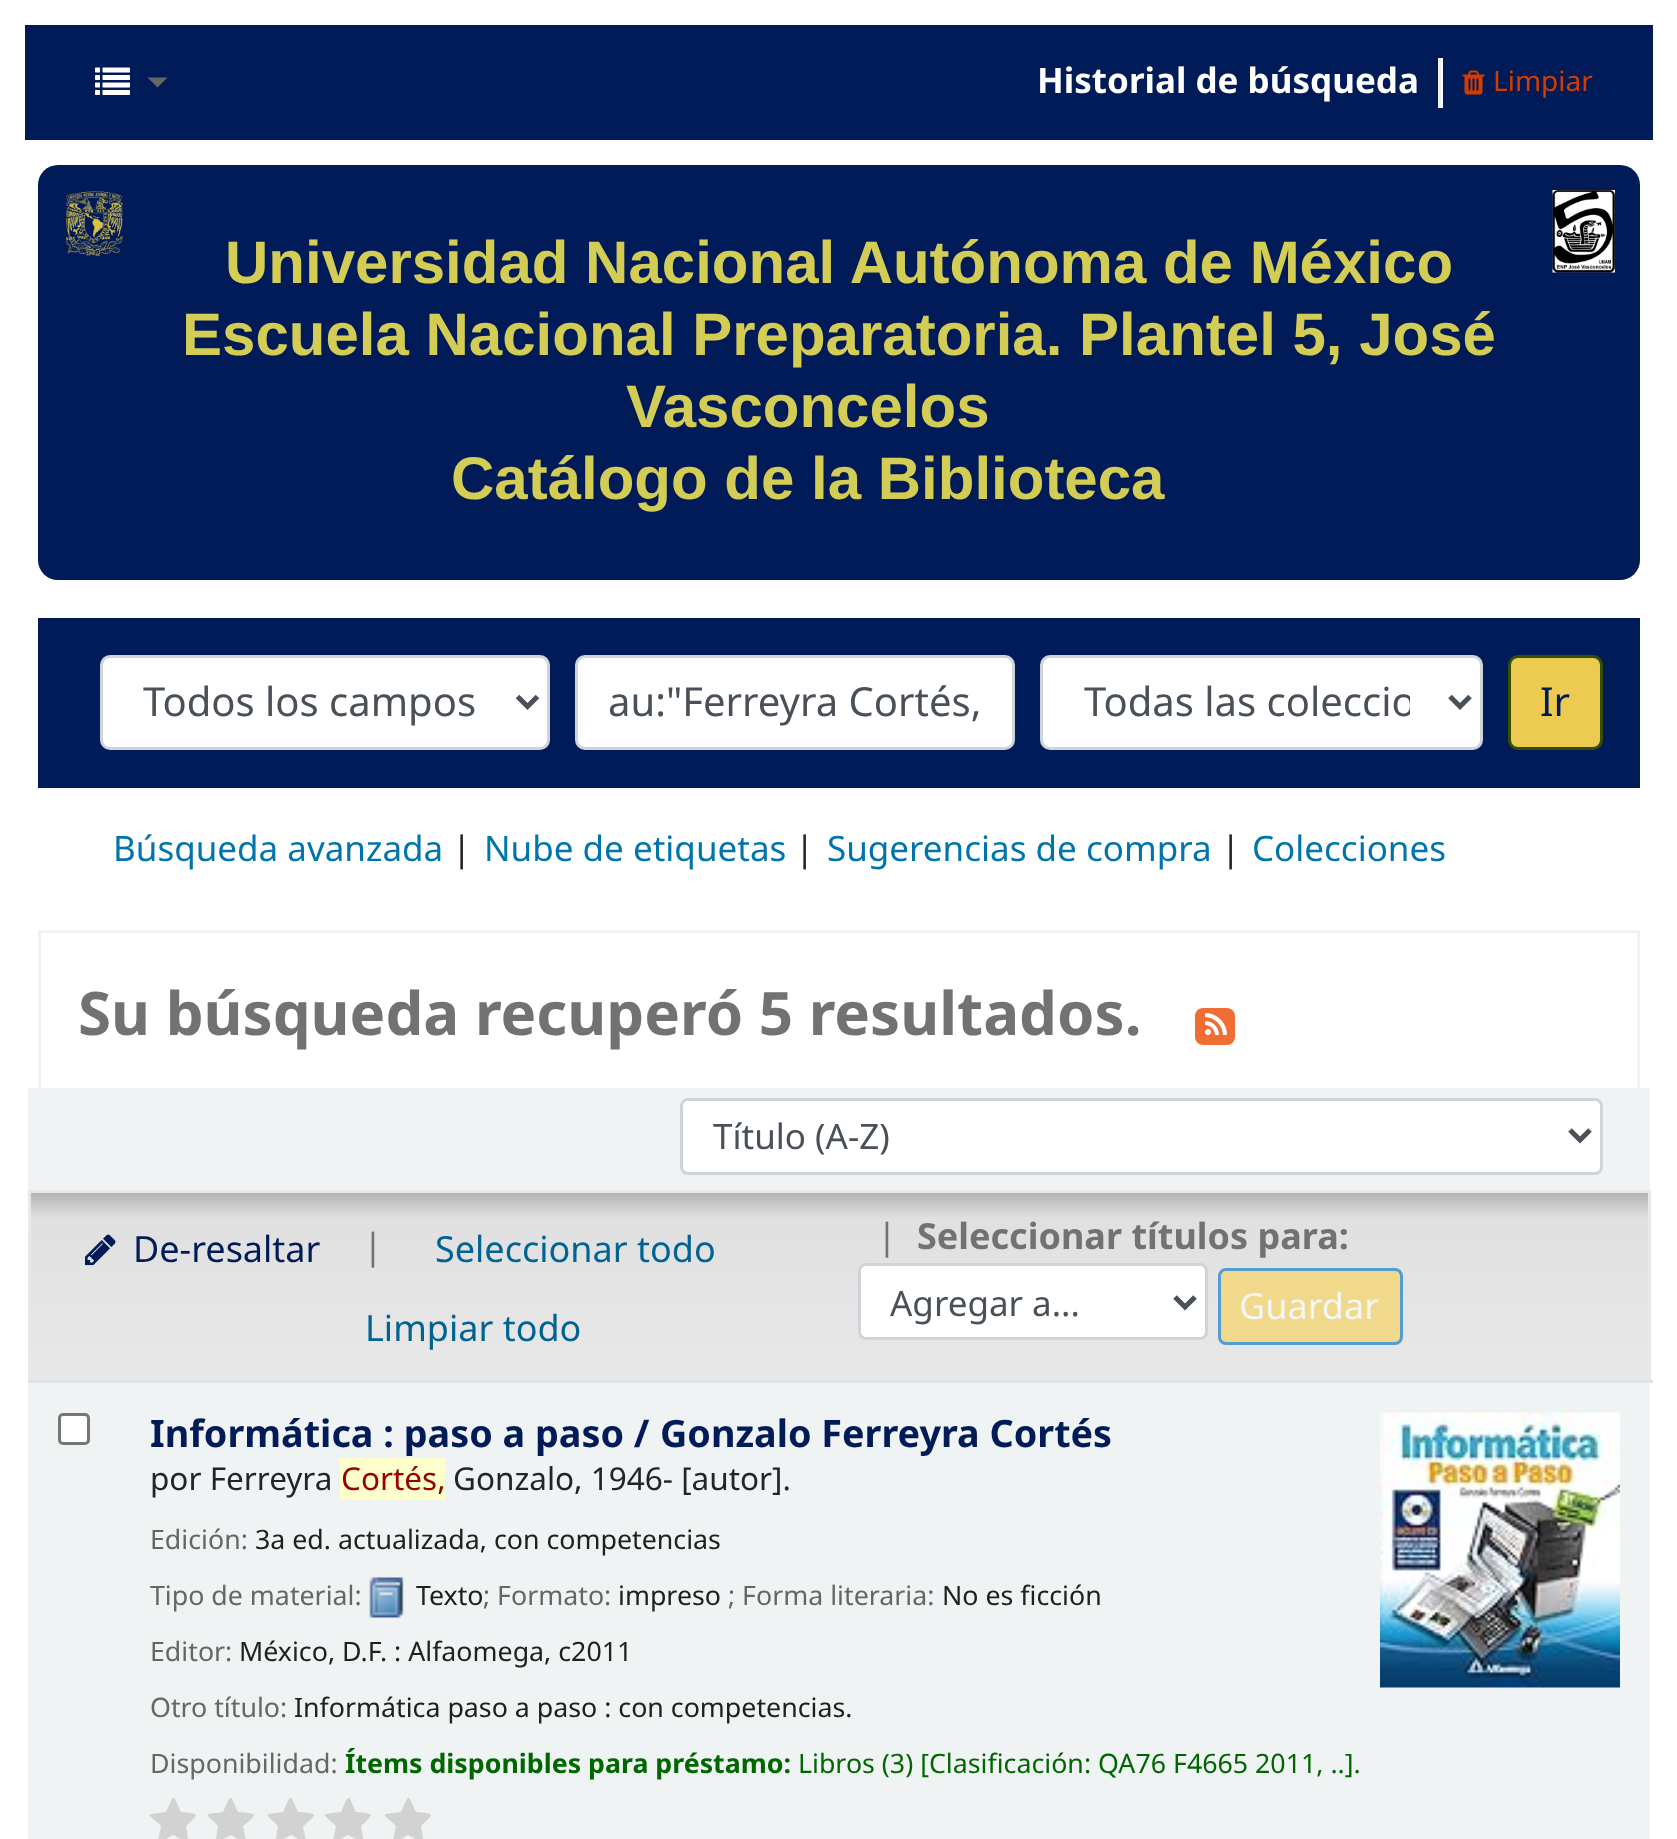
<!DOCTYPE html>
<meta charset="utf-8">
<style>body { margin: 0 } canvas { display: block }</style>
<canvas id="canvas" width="1677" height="1839"></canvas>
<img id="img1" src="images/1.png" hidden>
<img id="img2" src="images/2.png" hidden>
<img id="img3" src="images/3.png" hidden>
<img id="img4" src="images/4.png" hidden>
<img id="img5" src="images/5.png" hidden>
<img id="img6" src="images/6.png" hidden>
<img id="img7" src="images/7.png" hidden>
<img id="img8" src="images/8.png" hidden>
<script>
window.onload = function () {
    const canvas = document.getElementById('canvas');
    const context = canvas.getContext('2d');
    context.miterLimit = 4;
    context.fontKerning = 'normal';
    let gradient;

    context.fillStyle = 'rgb(255, 255, 255)';
    context.fillRect(0, 0, 1677, 1839);
    context.fillStyle = 'rgb(0, 27, 88)';
    context.fillRect(25, 25, 1628, 115);
    context.drawImage(document.getElementById('img1'), 95, 67, 35, 28);
    context.fillStyle = 'rgb(102, 102, 102)';
    context.beginPath();
    context.moveTo(147.5, 77.5);
    context.lineTo(167.5, 77.5);
    context.lineTo(157.5, 87.5);
    context.closePath();
    context.fill();
    context.fillStyle = 'rgb(252, 249, 252)';
    context.fillRect(1441, 58, 2, 50);
    context.fillStyle = 'rgb(238, 238, 238)';
    context.fillRect(1438, 105, 5, 3);
    context.fillRect(1438, 58, 3, 50);
    context.drawImage(document.getElementById('img2'), 1462, 70, 23, 25);
    context.fillStyle = 'rgb(0, 27, 88)';
    context.beginPath();
    context.roundRect(38, 165, 1602, 415, 20);
    context.fill();
    context.drawImage(document.getElementById('img3'), 65, 191, 58, 65);
    context.drawImage(document.getElementById('img4'), 1552, 190, 63, 83);
    context.fillRect(38, 618, 1602, 170);
    context.fillStyle = 'rgb(255, 255, 255)';
    context.beginPath();
    context.roundRect(101.5, 656.5, 447, 92, 8.5);
    context.fill();
    context.strokeStyle = 'rgb(206, 212, 218)';
    context.lineWidth = 3;
    context.stroke();
    context.beginPath();
    context.moveTo(517.5, 696.5);
    context.lineTo(527.5, 706.5);
    context.lineTo(537.5, 696.5);
    context.strokeStyle = 'rgb(73, 80, 87)';
    context.lineWidth = 5;
    context.stroke();
    context.beginPath();
    context.roundRect(576.5, 656.5, 437, 92, 8.5);
    context.fill();
    context.strokeStyle = 'rgb(206, 212, 218)';
    context.lineWidth = 3;
    context.stroke();
    context.beginPath();
    context.roundRect(1041.5, 656.5, 440, 92, 8.5);
    context.fill();
    context.stroke();
    context.beginPath();
    context.moveTo(1450, 696.5);
    context.lineTo(1460, 706.5);
    context.lineTo(1470, 696.5);
    context.strokeStyle = 'rgb(73, 80, 87)';
    context.lineWidth = 5;
    context.stroke();
    context.fillStyle = 'rgb(237, 202, 80)';
    context.beginPath();
    context.roundRect(1509.5, 656.5, 92, 92, 8.5);
    context.fill();
    context.strokeStyle = 'rgb(51, 80, 0)';
    context.lineWidth = 3;
    context.stroke();
    context.strokeStyle = 'rgb(240, 243, 243)';
    context.strokeRect(39.5, 931.5, 1599, 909);
    context.fillStyle = 'rgb(240, 109, 52)';
    context.beginPath();
    context.roundRect(1195, 1008, 40, 37, 8);
    context.fill();
    context.drawImage(document.getElementById('img5'), 1205, 1013, 22, 22);
    context.fillStyle = 'rgb(240, 243, 243)';
    context.fillRect(28, 1088, 1622, 102);
    context.fillStyle = 'rgb(255, 255, 255)';
    context.beginPath();
    context.roundRect(681.5, 1099.5, 920, 74, 6.5);
    context.fill();
    context.strokeStyle = 'rgb(206, 212, 218)';
    context.stroke();
    context.beginPath();
    context.moveTo(1570, 1130);
    context.lineTo(1580, 1140);
    context.lineTo(1590, 1130);
    context.strokeStyle = 'rgb(73, 80, 87)';
    context.lineWidth = 5;
    context.stroke();
    gradient = context.createLinearGradient(839, 1005, 839, 1193);
    gradient.addColorStop(0, 'rgb(178, 178, 178)');
    gradient.addColorStop(0.14, 'rgb(224, 224, 224)');
    gradient.addColorStop(1, 'rgb(232, 232, 232)');
    context.fillStyle = gradient;
    context.fillRect(28, 1190, 1622, 3);
    gradient = context.createLinearGradient(839, 1192, 839, 1380);
    gradient.addColorStop(0, 'rgb(178, 178, 178)');
    gradient.addColorStop(0.14, 'rgb(224, 224, 224)');
    gradient.addColorStop(1, 'rgb(232, 232, 232)');
    context.fillStyle = gradient;
    context.fillRect(31, 1193, 1617, 187);
    context.fillStyle = 'rgb(232, 232, 232)';
    context.fillRect(1648, 1190, 3, 190);
    context.fillRect(28, 1190, 3, 190);
    context.drawImage(document.getElementById('img6'), 85, 1234, 31, 32);
    context.fillStyle = 'rgb(255, 255, 255)';
    context.beginPath();
    context.roundRect(859.5, 1264.5, 347, 74, 6.5);
    context.fill();
    context.strokeStyle = 'rgb(206, 212, 218)';
    context.lineWidth = 3;
    context.stroke();
    context.beginPath();
    context.moveTo(1175, 1297);
    context.lineTo(1185, 1307);
    context.lineTo(1195, 1297);
    context.strokeStyle = 'rgb(73, 80, 87)';
    context.lineWidth = 5;
    context.stroke();
    context.fillStyle = 'rgba(255, 255, 255, 0.65)';
    context.beginPath();
    context.roundRect(1218, 1268, 185, 77, 8);
    context.fill();
    context.fillStyle = 'rgba(237, 202, 80, 0.65)';
    context.beginPath();
    context.roundRect(1218, 1268, 185, 77, 8);
    context.fill();
    context.beginPath();
    context.roundRect(1219.5, 1269.5, 182, 74, 6.5);
    context.strokeStyle = 'rgba(0, 123, 255, 0.65)';
    context.lineWidth = 3;
    context.stroke();
    context.fillStyle = 'rgb(240, 243, 243)';
    context.fillRect(28, 1383, 1622, 456);
    context.fillStyle = 'rgb(255, 255, 255)';
    context.beginPath();
    context.roundRect(59.5, 1414.5, 29, 29, 3.5);
    context.fill();
    context.strokeStyle = 'rgb(118, 118, 118)';
    context.stroke();
    context.fillStyle = 'rgb(222, 226, 230)';
    context.fillRect(28, 1380, 1625, 3);
    context.fillStyle = 'rgb(255, 255, 204)';
    context.fillRect(340, 1458, 105, 42);
    context.drawImage(document.getElementById('img7'), 369, 1577, 35, 41);
    context.fillStyle = 'rgb(210, 210, 210)';
    context.beginPath();
    context.moveTo(196, 1815);
    context.bezierCurveTo(196, 1817, 187, 1825, 186, 1826);
    context.bezierCurveTo(189, 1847, 192, 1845, 173, 1835);
    context.bezierCurveTo(155, 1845, 157, 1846, 161, 1826);
    context.bezierCurveTo(146, 1812, 144, 1815, 166, 1812);
    context.bezierCurveTo(175, 1793, 172, 1793, 181, 1812);
    context.bezierCurveTo(183, 1812, 196, 1813, 196, 1815);
    context.closePath();
    context.fill();
    context.beginPath();
    context.moveTo(254, 1815);
    context.bezierCurveTo(254, 1817, 245, 1825, 243, 1826);
    context.bezierCurveTo(247, 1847, 249, 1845, 231, 1835);
    context.bezierCurveTo(212, 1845, 215, 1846, 218, 1826);
    context.bezierCurveTo(204, 1812, 202, 1815, 223, 1812);
    context.bezierCurveTo(232, 1793, 229, 1793, 238, 1812);
    context.bezierCurveTo(241, 1812, 254, 1813, 254, 1815);
    context.closePath();
    context.fill();
    context.beginPath();
    context.moveTo(314, 1815);
    context.bezierCurveTo(314, 1817, 305, 1825, 303, 1826);
    context.bezierCurveTo(307, 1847, 309, 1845, 291, 1835);
    context.bezierCurveTo(272, 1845, 275, 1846, 278, 1826);
    context.bezierCurveTo(264, 1812, 262, 1815, 283, 1812);
    context.bezierCurveTo(292, 1793, 289, 1793, 298, 1812);
    context.bezierCurveTo(301, 1812, 314, 1813, 314, 1815);
    context.closePath();
    context.fill();
    context.beginPath();
    context.moveTo(371, 1815);
    context.bezierCurveTo(371, 1817, 362, 1825, 361, 1826);
    context.bezierCurveTo(364, 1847, 367, 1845, 348, 1835);
    context.bezierCurveTo(330, 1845, 332, 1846, 336, 1826);
    context.bezierCurveTo(321, 1812, 319, 1815, 341, 1812);
    context.bezierCurveTo(350, 1793, 347, 1793, 356, 1812);
    context.bezierCurveTo(358, 1812, 371, 1813, 371, 1815);
    context.closePath();
    context.fill();
    context.beginPath();
    context.moveTo(431, 1815);
    context.bezierCurveTo(431, 1817, 422, 1825, 421, 1826);
    context.bezierCurveTo(424, 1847, 427, 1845, 408, 1835);
    context.bezierCurveTo(390, 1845, 392, 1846, 396, 1826);
    context.bezierCurveTo(381, 1812, 379, 1815, 401, 1812);
    context.bezierCurveTo(410, 1793, 407, 1793, 416, 1812);
    context.bezierCurveTo(418, 1812, 431, 1813, 431, 1815);
    context.closePath();
    context.fill();
    context.drawImage(document.getElementById('img8'), 1380, 1412, 240, 276);
    context.font = 'bold 35px Noto Sans';
    context.fillStyle = 'rgb(255, 255, 255)';
    context.fillText('Historial de búsqueda', 1037, 93);
    context.font = '28px Noto Sans';
    context.fillStyle = 'rgb(212, 60, 0)';
    context.fillText('Limpiar', 1493, 91);
    context.font = 'bold 60px Liberation Sans';
    context.fillStyle = 'rgb(211, 204, 85)';
    context.fillText('Universidad Nacional Autónoma de México', 225, 283);
    context.fillText('Escuela Nacional Preparatoria. Plantel 5, José', 182, 355);
    context.fillText('Vasconcelos', 626, 427);
    context.fillText('Catálogo de la Biblioteca', 451, 499);
    context.save();
    context.beginPath();
    context.rect(143, 673, 335, 60);
    context.clip();
    context.font = '40px Noto Sans';
    context.fillStyle = 'rgb(73, 80, 87)';
    context.fillText('Todos los campos', 143, 716);
    context.restore();
    context.font = '40px Noto Sans';
    context.fillStyle = 'rgb(73, 80, 87)';
    context.fillText('au:"Ferreyra Cortés,', 608, 716);
    context.save();
    context.beginPath();
    context.rect(1083, 673, 327, 60);
    context.clip();
    context.fillText('Todas las coleccio', 1084, 716);
    context.restore();
    context.fillStyle = 'rgb(0, 27, 88)';
    context.fillText('Ir', 1540, 716);
    context.font = '35px Noto Sans';
    context.fillStyle = 'rgb(0, 116, 173)';
    context.fillText('Búsqueda avanzada', 113, 861);
    context.fillStyle = 'rgb(33, 37, 41)';
    context.fillText('|', 452, 861);
    context.fillStyle = 'rgb(0, 116, 173)';
    context.fillText('Nube de etiquetas', 484, 861);
    context.fillStyle = 'rgb(33, 37, 41)';
    context.fillText('|', 795, 861);
    context.fillStyle = 'rgb(0, 116, 173)';
    context.fillText('Sugerencias de compra', 827, 861);
    context.fillStyle = 'rgb(33, 37, 41)';
    context.fillText('|', 1221, 861);
    context.fillStyle = 'rgb(0, 116, 173)';
    context.fillText('Colecciones', 1252, 861);
    context.font = 'bold 60px Noto Sans';
    context.fillStyle = 'rgb(114, 114, 114)';
    context.fillText('Su búsqueda recuperó 5 resultados.', 78, 1035);
    context.save();
    context.beginPath();
    context.rect(713, 1110, 827, 53);
    context.clip();
    context.font = '35px Noto Sans';
    context.fillStyle = 'rgb(73, 80, 87)';
    context.fillText('Título (A-Z)', 713, 1149);
    context.restore();
    context.font = '36px Noto Sans';
    context.fillStyle = 'rgb(0, 27, 88)';
    context.fillText('De-resaltar', 133, 1262);
    context.fillStyle = 'rgb(108, 117, 125)';
    context.fillText('|', 363, 1259);
    context.fillStyle = 'rgb(0, 99, 148)';
    context.fillText('Seleccionar todo', 435, 1262);
    context.fillText('Limpiar todo', 365, 1341);
    context.fillStyle = 'rgb(108, 117, 125)';
    context.fillText('|', 877, 1249);
    context.font = 'bold 36px Noto Sans';
    context.fillStyle = 'rgb(114, 114, 114)';
    context.fillText('Seleccionar títulos para:', 917, 1249);
    context.font = '35px Noto Sans';
    context.fillStyle = 'rgb(73, 80, 87)';
    context.fillText('Agregar a...', 890, 1316);
    context.font = '36px Noto Sans';
    context.fillStyle = 'rgb(246, 246, 246)';
    context.fillText('Guardar', 1239, 1319);
    context.font = 'bold 37.75px Noto Sans';
    context.fillStyle = 'rgb(0, 27, 88)';
    context.fillText('Informática : paso a paso /', 150, 1447);
    context.fillText('Gonzalo Ferreyra Cortés', 660, 1447);
    context.font = '31.5px Noto Sans';
    context.fillStyle = 'rgb(33, 37, 41)';
    context.fillText('por Ferreyra', 150, 1490);
    context.fillStyle = 'rgb(153, 0, 0)';
    context.fillText('Cortés,', 341, 1490);
    context.fillStyle = 'rgb(33, 37, 41)';
    context.fillText('Gonzalo, 1946- [autor].', 453, 1490);
    context.font = '26.75px Noto Sans';
    context.fillStyle = 'rgb(102, 102, 102)';
    context.fillText('Edición:', 150, 1549);
    context.fillStyle = 'rgb(32, 32, 32)';
    context.fillText('3a ed. actualizada, con competencias', 255, 1549);
    context.fillStyle = 'rgb(102, 102, 102)';
    context.fillText('Tipo de material:', 150, 1605);
    context.fillStyle = 'rgb(32, 32, 32)';
    context.fillText('Texto', 416, 1605);
    context.fillStyle = 'rgb(102, 102, 102)';
    context.fillText('; Formato:', 483, 1605);
    context.fillStyle = 'rgb(32, 32, 32)';
    context.fillText('impreso', 618, 1605);
    context.fillStyle = 'rgb(102, 102, 102)';
    context.fillText('; Forma literaria:', 728, 1605);
    context.fillStyle = 'rgb(32, 32, 32)';
    context.fillText('No es ficción', 942, 1605);
    context.fillStyle = 'rgb(102, 102, 102)';
    context.fillText('Editor:', 150, 1661);
    context.fillStyle = 'rgb(32, 32, 32)';
    context.fillText('México, D.F. : Alfaomega, c2011', 239, 1661);
    context.fillStyle = 'rgb(102, 102, 102)';
    context.fillText('Otro título:', 150, 1717);
    context.fillStyle = 'rgb(32, 32, 32)';
    context.fillText('Informática paso a paso : con competencias.', 294, 1717);
    context.fillStyle = 'rgb(102, 102, 102)';
    context.fillText('Disponibilidad:', 150, 1773);
    context.font = 'bold 26.75px Noto Sans';
    context.fillStyle = 'rgb(0, 102, 0)';
    context.fillText('Ítems disponibles para préstamo:', 345, 1773);
    context.font = '26.75px Noto Sans';
    context.fillText('Libros (3) [Clasificación: QA76 F4665 2011, ..].', 798, 1773);
};
</script>
